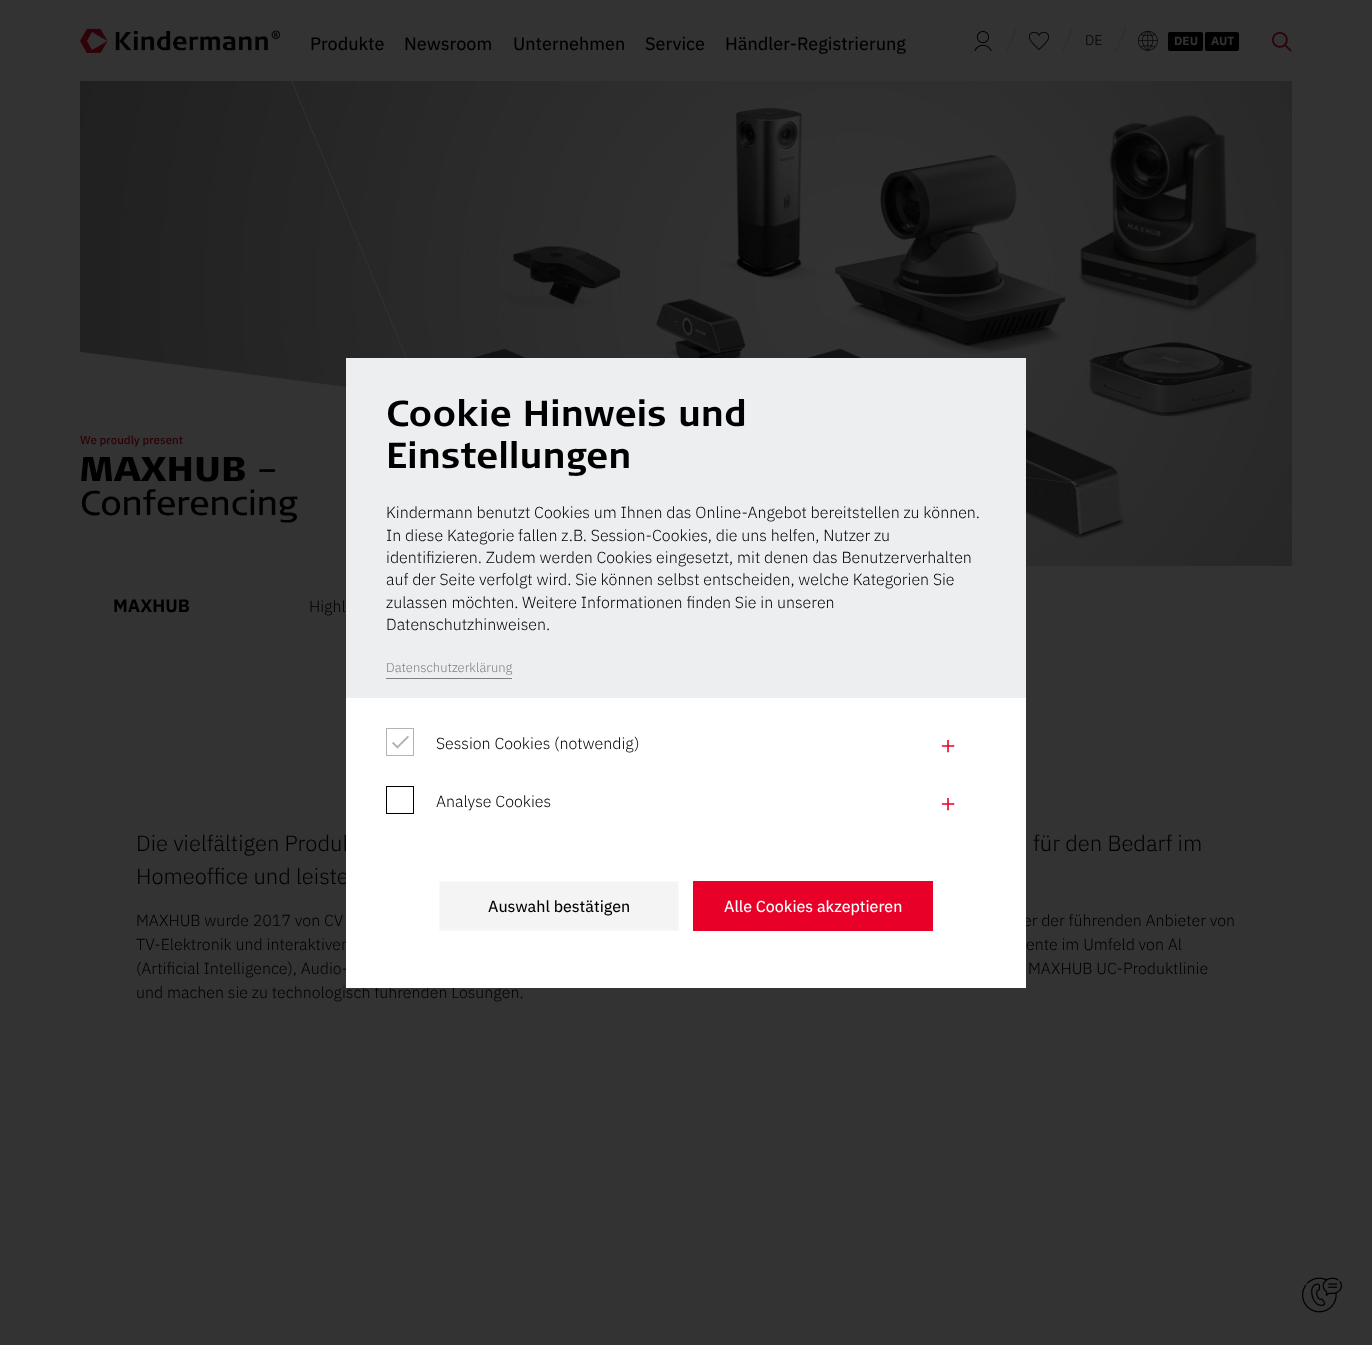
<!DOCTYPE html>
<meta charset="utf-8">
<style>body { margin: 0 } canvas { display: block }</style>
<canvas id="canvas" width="1372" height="1345"></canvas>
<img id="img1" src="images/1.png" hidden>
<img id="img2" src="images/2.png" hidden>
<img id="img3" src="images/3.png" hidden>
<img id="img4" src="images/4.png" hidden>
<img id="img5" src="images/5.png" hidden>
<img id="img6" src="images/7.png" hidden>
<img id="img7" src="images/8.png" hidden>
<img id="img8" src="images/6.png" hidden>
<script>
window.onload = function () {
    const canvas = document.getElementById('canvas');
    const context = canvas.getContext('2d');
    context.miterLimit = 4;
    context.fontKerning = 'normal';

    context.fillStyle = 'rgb(51, 51, 51)';
    context.fillRect(0, 0, 1372, 1345);
    context.drawImage(document.getElementById('img1'), 80, 28, 200, 25);
    context.drawImage(document.getElementById('img2'), 974, 31, 18, 20);
    context.fillStyle = 'rgb(46, 46, 46)';
    context.beginPath();
    context.moveTo(1016, 27.5);
    context.lineTo(1017, 28);
    context.lineTo(1007, 52.5);
    context.lineTo(1006, 52);
    context.closePath();
    context.fill();
    context.drawImage(document.getElementById('img3'), 1029, 31, 20, 19);
    context.beginPath();
    context.moveTo(1072, 27.5);
    context.lineTo(1073, 28);
    context.lineTo(1063, 52.5);
    context.lineTo(1062, 52);
    context.closePath();
    context.fill();
    context.beginPath();
    context.moveTo(1125.5, 27.5);
    context.lineTo(1126.5, 28);
    context.lineTo(1116, 52.5);
    context.lineTo(1115, 52);
    context.closePath();
    context.fill();
    context.drawImage(document.getElementById('img4'), 1138, 31, 20, 20);
    context.fillStyle = 'rgb(0, 0, 0)';
    context.beginPath();
    context.roundRect(1168, 32, 35, 19, 2);
    context.fill();
    context.beginPath();
    context.roundRect(1205, 32, 34, 19, 2);
    context.fill();
    context.drawImage(document.getElementById('img5'), 1272, 32, 20, 20);
    context.drawImage(document.getElementById('img6'), 80, 81, 1212, 485);
    context.save();
    context.beginPath();
    context.rect(80, 81, 1212, 485);
    context.clip();
    context.fillStyle = 'rgb(51, 51, 51)';
    context.beginPath();
    context.moveTo(-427, 285);
    context.lineTo(423, 397);
    context.lineTo(368, 816);
    context.lineTo(-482, 704);
    context.closePath();
    context.fill();
    context.beginPath();
    context.moveTo(-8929, -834);
    context.lineTo(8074, 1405);
    context.lineTo(-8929, -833);
    context.closePath();
    context.fill();
    context.beginPath();
    context.moveTo(-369, 726);
    context.lineTo(423, 397);
    context.lineTo(585, 788);
    context.lineTo(-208, 1116);
    context.closePath();
    context.fill();
    context.beginPath();
    context.moveTo(-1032, -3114);
    context.lineTo(-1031, -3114);
    context.lineTo(585, 788);
    context.lineTo(584, 788);
    context.closePath();
    context.fill();
    context.restore();
    context.fillStyle = 'rgb(237, 238, 239)';
    context.fillRect(346, 358, 680, 340);
    context.fillStyle = 'rgb(128, 128, 128)';
    context.fillRect(386, 678, 126, 1);
    context.drawImage(document.getElementById('img7'), 1302, 1277, 40, 36);
    context.font = '18px IBM Plex Sans';
    context.fillStyle = 'rgb(0, 0, 0)';
    context.fillText('Produkte', 310, 50);
    context.fillText('Newsroom', 404, 50);
    context.fillText('Unternehmen', 513, 50);
    context.fillText('Service', 645, 50);
    context.fillText('Händler-Registrierung', 725, 50);
    context.font = '300 14px IBM Plex Sans';
    context.fillText('DE', 1085, 45);
    context.font = 'bold 12px IBM Plex Sans';
    context.fillStyle = 'rgb(51, 51, 51)';
    context.fillText('DEU', 1174, 45);
    context.fillText('AUT', 1211, 45);
    context.font = 'bold 36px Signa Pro';
    context.fillStyle = 'rgb(0, 0, 0)';
    context.fillText('Cookie Hinweis und', 386, 426);
    context.fillText('Einstellungen', 386, 468);
    context.font = '300 16px IBM Plex Sans';
    context.fillText('Kindermann benutzt Cookies um Ihnen das Online-Angebot bereitstellen zu können.', 386, 518);
    context.fillText('In diese Kategorie fallen z.B. Session-Cookies, die uns helfen, Nutzer zu', 386, 541);
    context.fillText('identifizieren. Zudem werden Cookies eingesetzt, mit denen das Benutzerverhalten', 386, 563);
    context.fillText('auf der Seite verfolgt wird. Sie können selbst entscheiden, welche Kategorien Sie', 386, 585);
    context.fillText('zulassen möchten. Weitere Informationen finden Sie in unseren', 386, 608);
    context.fillText('Datenschutzhinweisen.', 386, 630);
    context.font = '300 13px IBM Plex Sans';
    context.fillStyle = 'rgb(128, 128, 128)';
    context.fillText('Datenschutzerklärung', 386, 672);
    context.font = '500 11.5px IBM Plex Sans';
    context.fillStyle = 'rgb(46, 0, 8)';
    context.fillText('We proudly present', 80, 444);
    context.font = '900 34.25px Signa Pro';
    context.fillStyle = 'rgb(0, 0, 0)';
    context.fillText('MAXHUB', 80, 481);
    context.font = '34.25px Signa Pro';
    context.fillText('–', 257, 481);
    context.fillText('Conferencing', 80, 515);
    context.font = 'bold 18px IBM Plex Sans';
    context.fillText('MAXHUB', 113, 612);
    context.font = '300 16px IBM Plex Sans';
    context.fillText('Highl', 309, 612);
    context.font = '300 22px IBM Plex Sans';
    context.fillText('Die vielfältigen Produk', 136, 851);
    context.fillText('für den Bedarf im', 1033, 851);
    context.fillText('Homeoffice und leiste', 136, 884);
    context.font = '300 16px IBM Plex Sans';
    context.fillText('MAXHUB wurde 2017 von CV', 136, 926);
    context.fillText('er der führenden Anbieter von', 1023, 926);
    context.fillText('TV-Elektronik und interaktiven', 136, 950);
    context.fillText('ente im Umfeld von Al', 1026, 950);
    context.fillText('(Artificial Intelligence), Audio-', 136, 974);
    context.fillText('MAXHUB UC-Produktlinie', 1028, 974);
    context.fillText('und machen sie zu technologisch führenden Lösungen.', 136, 998);
    context.fillStyle = 'rgb(255, 255, 255)';
    context.fillRect(346, 698, 680, 290);
    context.fillStyle = 'rgb(0, 0, 0)';
    context.fillText('Analyse Cookies', 436, 807);
    context.fillText('Session Cookies (notwendig)', 436, 749);
    context.font = '500 24px WenQuanYi Zen Hei';
    context.fillStyle = 'rgb(232, 0, 41)';
    context.fillText('＋', 936, 811);
    context.strokeStyle = 'rgb(0, 0, 0)';
    context.strokeRect(386.5, 786.5, 27, 27);
    context.fillText('＋', 936, 753);
    context.drawImage(document.getElementById('img8'), 392, 736, 17, 13);
    context.strokeStyle = 'rgb(179, 179, 179)';
    context.strokeRect(386.5, 728.5, 27, 27);
    context.fillRect(693, 881, 240, 50);
    context.font = '16px IBM Plex Sans';
    context.fillStyle = 'rgb(255, 255, 255)';
    context.fillText('Alle Cookies akzeptieren', 724, 912);
    context.fillStyle = 'rgb(244, 244, 244)';
    context.beginPath();
    context.rect(439.5, 881.5, 239, 49);
    context.fill();
    context.strokeStyle = 'rgb(248, 249, 250)';
    context.stroke();
    context.fillStyle = 'rgb(0, 0, 0)';
    context.fillText('Auswahl bestätigen', 488, 912);
};
</script>
